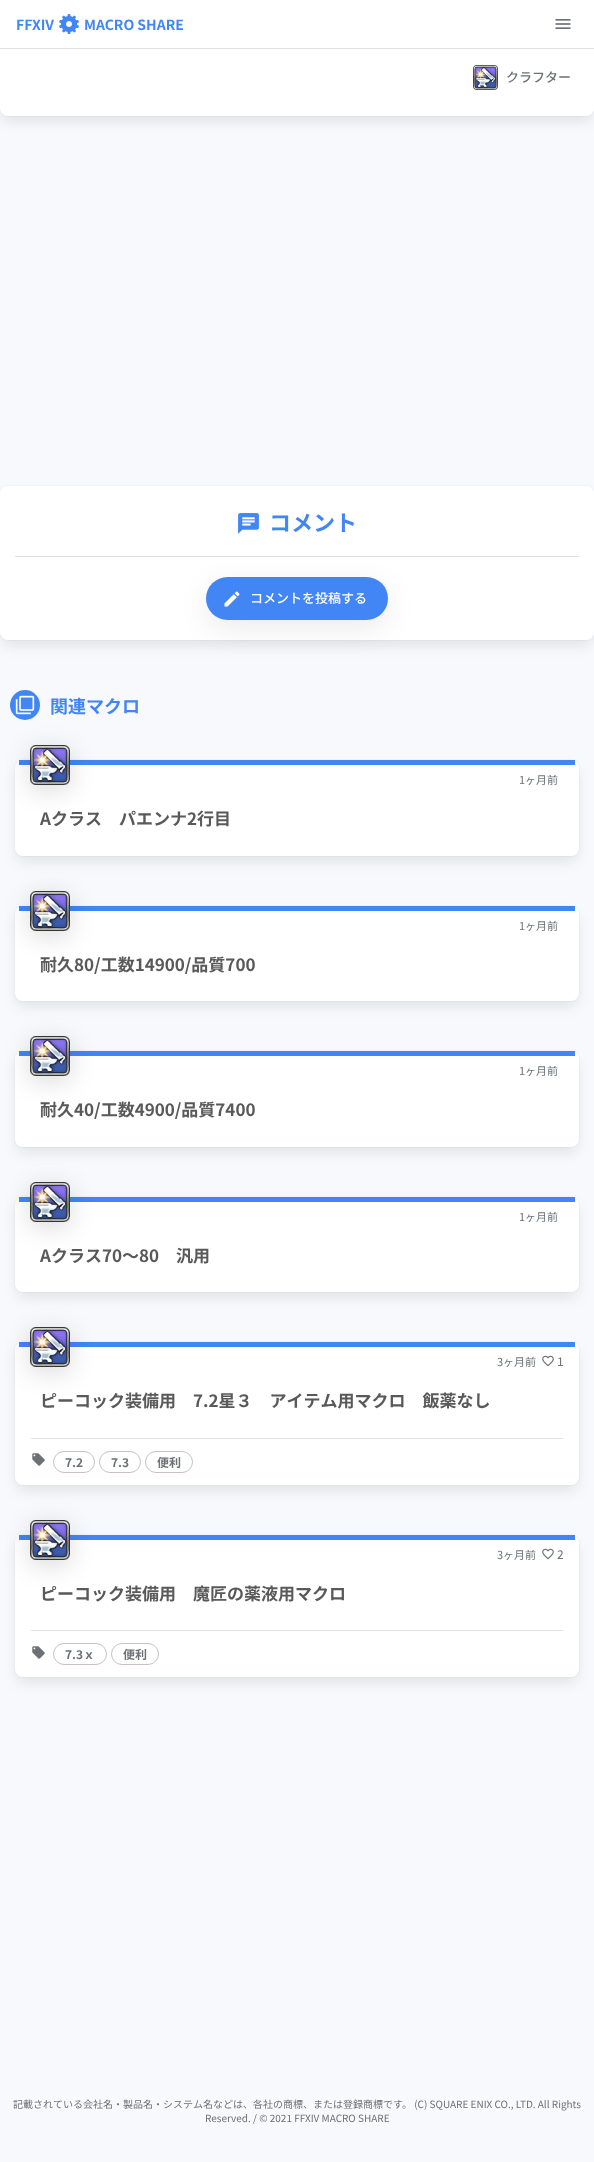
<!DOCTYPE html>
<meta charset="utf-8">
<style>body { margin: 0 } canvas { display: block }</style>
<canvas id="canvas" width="594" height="2162"></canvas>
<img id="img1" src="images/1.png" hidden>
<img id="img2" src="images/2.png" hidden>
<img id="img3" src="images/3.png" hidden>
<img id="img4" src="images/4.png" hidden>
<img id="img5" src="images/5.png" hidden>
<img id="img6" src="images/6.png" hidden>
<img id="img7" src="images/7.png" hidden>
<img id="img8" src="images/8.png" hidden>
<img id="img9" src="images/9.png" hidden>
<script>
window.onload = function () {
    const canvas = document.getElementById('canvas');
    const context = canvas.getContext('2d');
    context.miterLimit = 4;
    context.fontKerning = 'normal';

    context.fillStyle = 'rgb(247, 249, 252)';
    context.fillRect(0, 0, 594, 2162);
    context.beginPath();
    context.roundRect(-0.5, -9.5, 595, 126, 8.5);
    context.strokeStyle = 'rgb(242, 244, 247)';
    context.stroke();
    context.fillStyle = 'rgba(10, 10, 10, 0.1)';
    context.filter = 'blur(7px)';
    context.beginPath();
    context.roundRect(2, -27, 590, 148, 6);
    context.fill();
    context.filter = 'none';
    context.fillStyle = 'rgb(255, 255, 255)';
    context.beginPath();
    context.roundRect(0, -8, 594, 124, 8);
    context.fill();
    context.fillStyle = 'rgb(224, 224, 231)';
    context.fillRect(0, 48, 594, 1);
    context.drawImage(document.getElementById('img1'), 59, 14, 20, 20);
    context.drawImage(document.getElementById('img2'), 555, 19, 16, 10);
    context.drawImage(document.getElementById('img3'), 473, 65, 25, 25);
    context.beginPath();
    context.roundRect(-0.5, 485.5, 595, 155, 8.5);
    context.stroke();
    context.fillStyle = 'rgba(10, 10, 10, 0.1)';
    context.filter = 'blur(7px)';
    context.beginPath();
    context.roundRect(2, 495, 590, 150, 6);
    context.fill();
    context.filter = 'none';
    context.fillStyle = 'rgb(255, 255, 255)';
    context.beginPath();
    context.roundRect(0, 486, 594, 154, 8);
    context.fill();
    context.fillStyle = 'rgb(224, 224, 231)';
    context.fillRect(15, 556, 564, 1);
    context.drawImage(document.getElementById('img4'), 238, 513, 21, 21);
    context.fillStyle = 'rgba(0, 0, 0, 0.08)';
    context.filter = 'blur(14px)';
    context.beginPath();
    context.roundRect(206, 585, 182, 43, 21.5);
    context.fill();
    context.filter = 'none';
    context.fillStyle = 'rgb(66, 133, 244)';
    context.beginPath();
    context.roundRect(206, 577, 182, 43, 21.5);
    context.fill();
    context.drawImage(document.getElementById('img5'), 224, 591, 16, 16);
    context.beginPath();
    context.arc(25, 705, 15, 0, 2 * Math.PI);
    context.fill();
    context.drawImage(document.getElementById('img6'), 15, 695, 20, 20);
    context.beginPath();
    context.roundRect(14.5, 759.5, 565, 97, 8.5);
    context.stroke();
    context.fillStyle = 'rgba(10, 10, 10, 0.1)';
    context.filter = 'blur(7px)';
    context.beginPath();
    context.roundRect(17, 769, 560, 92, 6);
    context.fill();
    context.filter = 'none';
    context.fillStyle = 'rgb(255, 255, 255)';
    context.beginPath();
    context.roundRect(15, 760, 564, 96, 8);
    context.fill();
    context.fillStyle = 'rgb(66, 133, 244)';
    context.fillRect(19, 760, 556, 5);
    context.fillStyle = 'rgba(0, 0, 0, 0.14)';
    context.filter = 'blur(12.5px)';
    context.beginPath();
    context.rect(30, 750, 40, 40);
    context.fill();
    context.filter = 'none';
    context.drawImage(document.getElementById('img7'), 30, 745, 40, 40);
    context.beginPath();
    context.roundRect(14.5, 905.5, 565, 96, 8.5);
    context.stroke();
    context.fillStyle = 'rgba(10, 10, 10, 0.1)';
    context.filter = 'blur(7px)';
    context.beginPath();
    context.roundRect(17, 915, 560, 91, 6);
    context.fill();
    context.filter = 'none';
    context.fillStyle = 'rgb(255, 255, 255)';
    context.beginPath();
    context.roundRect(15, 906, 564, 95, 8);
    context.fill();
    context.fillStyle = 'rgb(66, 133, 244)';
    context.fillRect(19, 906, 556, 5);
    context.fillStyle = 'rgba(0, 0, 0, 0.14)';
    context.filter = 'blur(12.5px)';
    context.beginPath();
    context.rect(30, 896, 40, 40);
    context.fill();
    context.filter = 'none';
    context.drawImage(document.getElementById('img7'), 30, 891, 40, 40);
    context.beginPath();
    context.roundRect(14.5, 1050.5, 565, 97, 8.5);
    context.stroke();
    context.fillStyle = 'rgba(10, 10, 10, 0.1)';
    context.filter = 'blur(7px)';
    context.beginPath();
    context.roundRect(17, 1060, 560, 92, 6);
    context.fill();
    context.filter = 'none';
    context.fillStyle = 'rgb(255, 255, 255)';
    context.beginPath();
    context.roundRect(15, 1051, 564, 96, 8);
    context.fill();
    context.fillStyle = 'rgb(66, 133, 244)';
    context.fillRect(19, 1051, 556, 5);
    context.fillStyle = 'rgba(0, 0, 0, 0.14)';
    context.filter = 'blur(12.5px)';
    context.beginPath();
    context.rect(30, 1041, 40, 40);
    context.fill();
    context.filter = 'none';
    context.drawImage(document.getElementById('img7'), 30, 1036, 40, 40);
    context.beginPath();
    context.roundRect(14.5, 1196.5, 565, 96, 8.5);
    context.stroke();
    context.fillStyle = 'rgba(10, 10, 10, 0.1)';
    context.filter = 'blur(7px)';
    context.beginPath();
    context.roundRect(17, 1206, 560, 91, 6);
    context.fill();
    context.filter = 'none';
    context.fillStyle = 'rgb(255, 255, 255)';
    context.beginPath();
    context.roundRect(15, 1197, 564, 95, 8);
    context.fill();
    context.fillStyle = 'rgb(66, 133, 244)';
    context.fillRect(19, 1197, 556, 5);
    context.fillStyle = 'rgba(0, 0, 0, 0.14)';
    context.filter = 'blur(12.5px)';
    context.beginPath();
    context.rect(30, 1187, 40, 40);
    context.fill();
    context.filter = 'none';
    context.drawImage(document.getElementById('img7'), 30, 1182, 40, 40);
    context.beginPath();
    context.roundRect(14.5, 1341.5, 565, 144, 8.5);
    context.stroke();
    context.fillStyle = 'rgba(10, 10, 10, 0.1)';
    context.filter = 'blur(7px)';
    context.beginPath();
    context.roundRect(17, 1351, 560, 139, 6);
    context.fill();
    context.filter = 'none';
    context.fillStyle = 'rgb(255, 255, 255)';
    context.beginPath();
    context.roundRect(15, 1342, 564, 143, 8);
    context.fill();
    context.fillStyle = 'rgb(66, 133, 244)';
    context.fillRect(19, 1342, 556, 5);
    context.fillStyle = 'rgba(0, 0, 0, 0.14)';
    context.filter = 'blur(12.5px)';
    context.beginPath();
    context.rect(30, 1332, 40, 40);
    context.fill();
    context.filter = 'none';
    context.drawImage(document.getElementById('img7'), 30, 1327, 40, 40);
    context.drawImage(document.getElementById('img8'), 542, 1355, 12, 12);
    context.fillStyle = 'rgb(224, 224, 231)';
    context.fillRect(31, 1438, 532, 1);
    context.drawImage(document.getElementById('img9'), 32, 1453, 13, 13);
    context.beginPath();
    context.roundRect(53.5, 1451.5, 41, 21, 10.5);
    context.strokeStyle = 'rgb(196, 196, 196)';
    context.stroke();
    context.beginPath();
    context.roundRect(99.5, 1451.5, 41, 21, 10.5);
    context.stroke();
    context.beginPath();
    context.roundRect(145.5, 1451.5, 47, 21, 10.5);
    context.stroke();
    context.beginPath();
    context.roundRect(14.5, 1534.5, 565, 143, 8.5);
    context.strokeStyle = 'rgb(242, 244, 247)';
    context.stroke();
    context.fillStyle = 'rgba(10, 10, 10, 0.1)';
    context.filter = 'blur(7px)';
    context.beginPath();
    context.roundRect(17, 1544, 560, 138, 6);
    context.fill();
    context.filter = 'none';
    context.fillStyle = 'rgb(255, 255, 255)';
    context.beginPath();
    context.roundRect(15, 1535, 564, 142, 8);
    context.fill();
    context.fillStyle = 'rgb(66, 133, 244)';
    context.fillRect(19, 1535, 556, 5);
    context.fillStyle = 'rgba(0, 0, 0, 0.14)';
    context.filter = 'blur(12.5px)';
    context.beginPath();
    context.rect(30, 1525, 40, 40);
    context.fill();
    context.filter = 'none';
    context.drawImage(document.getElementById('img7'), 30, 1520, 40, 40);
    context.drawImage(document.getElementById('img8'), 542, 1548, 12, 12);
    context.fillStyle = 'rgb(224, 224, 231)';
    context.fillRect(31, 1630, 532, 1);
    context.drawImage(document.getElementById('img9'), 32, 1646, 13, 13);
    context.beginPath();
    context.roundRect(53.5, 1643.5, 53, 21, 10.5);
    context.strokeStyle = 'rgb(196, 196, 196)';
    context.stroke();
    context.beginPath();
    context.roundRect(111.5, 1643.5, 47, 21, 10.5);
    context.stroke();
    context.font = 'bold 14px Noto Sans JP';
    context.fillStyle = 'rgb(66, 133, 244)';
    context.fillText('FFXIV', 16, 30);
    context.fillText('MACRO SHARE', 84, 30);
    context.font = '500 13px Noto Sans JP';
    context.fillStyle = 'rgb(109, 113, 119)';
    context.fillText('クラフター', 506, 82);
    context.font = 'bold 22px Noto Sans JP';
    context.fillStyle = 'rgb(66, 133, 244)';
    context.fillText('コメント', 269, 531);
    context.font = '500 13px Noto Sans JP';
    context.fillStyle = 'rgb(255, 255, 255)';
    context.fillText('コメントを投稿する', 250, 603);
    context.font = 'bold 18px Noto Sans JP';
    context.fillStyle = 'rgb(66, 133, 244)';
    context.fillText('関連マクロ', 50, 713);
    context.font = '11px Noto Sans JP';
    context.fillStyle = 'rgb(109, 113, 119)';
    context.fillText('1ヶ月前', 519, 784);
    context.font = 'bold 17px Noto Sans JP';
    context.fillStyle = 'rgb(89, 89, 89)';
    context.fillText('Aクラス　パエンナ2行目', 40, 825);
    context.font = '11px Noto Sans JP';
    context.fillStyle = 'rgb(109, 113, 119)';
    context.fillText('1ヶ月前', 519, 930);
    context.font = 'bold 17px Noto Sans JP';
    context.fillStyle = 'rgb(89, 89, 89)';
    context.fillText('耐久80/工数14900/品質700', 40, 971);
    context.font = '11px Noto Sans JP';
    context.fillStyle = 'rgb(109, 113, 119)';
    context.fillText('1ヶ月前', 519, 1075);
    context.font = 'bold 17px Noto Sans JP';
    context.fillStyle = 'rgb(89, 89, 89)';
    context.fillText('耐久40/工数4900/品質7400', 40, 1116);
    context.font = '11px Noto Sans JP';
    context.fillStyle = 'rgb(109, 113, 119)';
    context.fillText('1ヶ月前', 519, 1221);
    context.font = 'bold 17px Noto Sans JP';
    context.fillStyle = 'rgb(89, 89, 89)';
    context.fillText('Aクラス70～80　汎用', 40, 1262);
    context.font = '11px Noto Sans JP';
    context.fillStyle = 'rgb(109, 113, 119)';
    context.fillText('3ヶ月前', 497, 1366);
    context.font = '12px Noto Sans JP';
    context.fillText('1', 557, 1366);
    context.font = 'bold 17px Noto Sans JP';
    context.fillStyle = 'rgb(89, 89, 89)';
    context.fillText('ピーコック装備用　7.2星３　アイテム用マクロ　飯薬なし', 40, 1407);
    context.font = 'bold 12px Noto Sans JP';
    context.fillStyle = 'rgb(109, 113, 119)';
    context.fillText('7.2', 65, 1467);
    context.fillText('7.3', 111, 1467);
    context.fillText('便利', 157, 1467);
    context.font = '11px Noto Sans JP';
    context.fillText('3ヶ月前', 497, 1559);
    context.font = '12px Noto Sans JP';
    context.fillText('2', 557, 1559);
    context.font = 'bold 17px Noto Sans JP';
    context.fillStyle = 'rgb(89, 89, 89)';
    context.fillText('ピーコック装備用　魔匠の薬液用マクロ', 40, 1600);
    context.font = 'bold 12px Noto Sans JP';
    context.fillStyle = 'rgb(109, 113, 119)';
    context.fillText('7.3ｘ', 65, 1659);
    context.fillText('便利', 123, 1659);
    context.font = '10px Noto Sans JP';
    context.fillText('記載されている会社名・製品名・システム名などは、各社の商標、または登録商標です。 (C) SQUARE ENIX CO., LTD. All Rights', 13, 2108);
    context.fillText('Reserved. / © 2021 FFXIV MACRO SHARE', 205, 2122);
};
</script>
